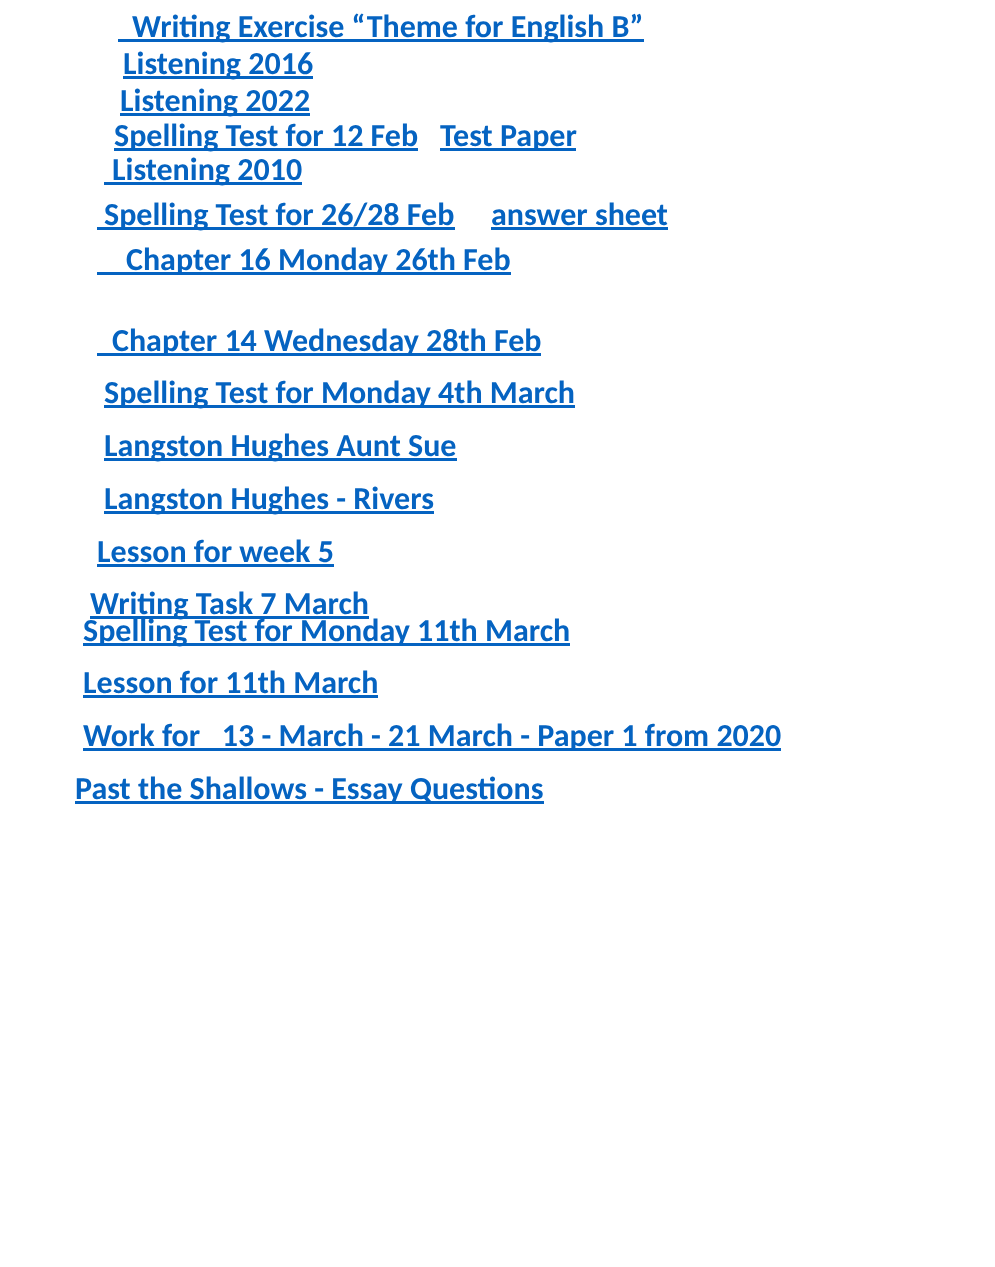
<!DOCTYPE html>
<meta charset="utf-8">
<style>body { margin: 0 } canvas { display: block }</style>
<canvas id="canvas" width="995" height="1267"></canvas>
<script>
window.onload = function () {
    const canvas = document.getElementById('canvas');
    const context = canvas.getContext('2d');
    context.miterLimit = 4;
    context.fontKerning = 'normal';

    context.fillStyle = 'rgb(255, 255, 255)';
    context.fillRect(0, 0, 995, 1267);
    context.fillStyle = 'rgb(5, 99, 193)';
    context.fillRect(118, 39, 526, 3);
    context.fillRect(123, 76, 190, 3);
    context.fillRect(120, 113, 190, 3);
    context.fillRect(114, 148, 304, 3);
    context.fillRect(440, 148, 136, 3);
    context.fillRect(104, 182, 198, 3);
    context.fillRect(97, 227, 358, 3);
    context.fillRect(491, 227, 177, 3);
    context.fillRect(97, 272, 414, 3);
    context.fillRect(97, 353, 444, 3);
    context.fillRect(104, 405, 471, 3);
    context.fillRect(104, 458, 353, 3);
    context.fillRect(104, 511, 330, 3);
    context.fillRect(97, 564, 237, 3);
    context.fillRect(90, 616, 279, 3);
    context.fillRect(83, 643, 487, 3);
    context.fillRect(83, 695, 295, 3);
    context.fillRect(83, 748, 698, 3);
    context.fillRect(75, 801, 469, 3);
    context.font = 'bold 32px Carlito';
    context.fillText('Writing Exercise “Theme for English B”', 132, 37);
    context.fillText('Listening 2016', 123, 74);
    context.fillText('Listening 2022', 120, 111);
    context.fillText('Spelling Test for 12 Feb', 114, 146);
    context.fillText('Test Paper', 440, 146);
    context.fillText('Listening 2010', 112, 180);
    context.fillText('Spelling Test for 26/28 Feb', 104, 225);
    context.fillText('answer sheet', 491, 225);
    context.fillText('Chapter 16 Monday 26th Feb', 126, 270);
    context.fillText('Chapter 14 Wednesday 28th Feb', 112, 351);
    context.fillText('Spelling Test for Monday 4th March', 104, 403);
    context.fillText('Langston Hughes Aunt Sue', 104, 456);
    context.fillText('Langston Hughes - Rivers', 104, 509);
    context.fillText('Lesson for week 5', 97, 562);
    context.fillText('Writing Task 7 March', 90, 614);
    context.fillText('Spelling Test for Monday 11th March', 83, 641);
    context.fillText('Lesson for 11th March', 83, 693);
    context.fillText('Work for   13 - March - 21 March - Paper 1 from 2020', 83, 746);
    context.fillText('Past the Shallows - Essay Questions', 75, 799);
};
</script>
